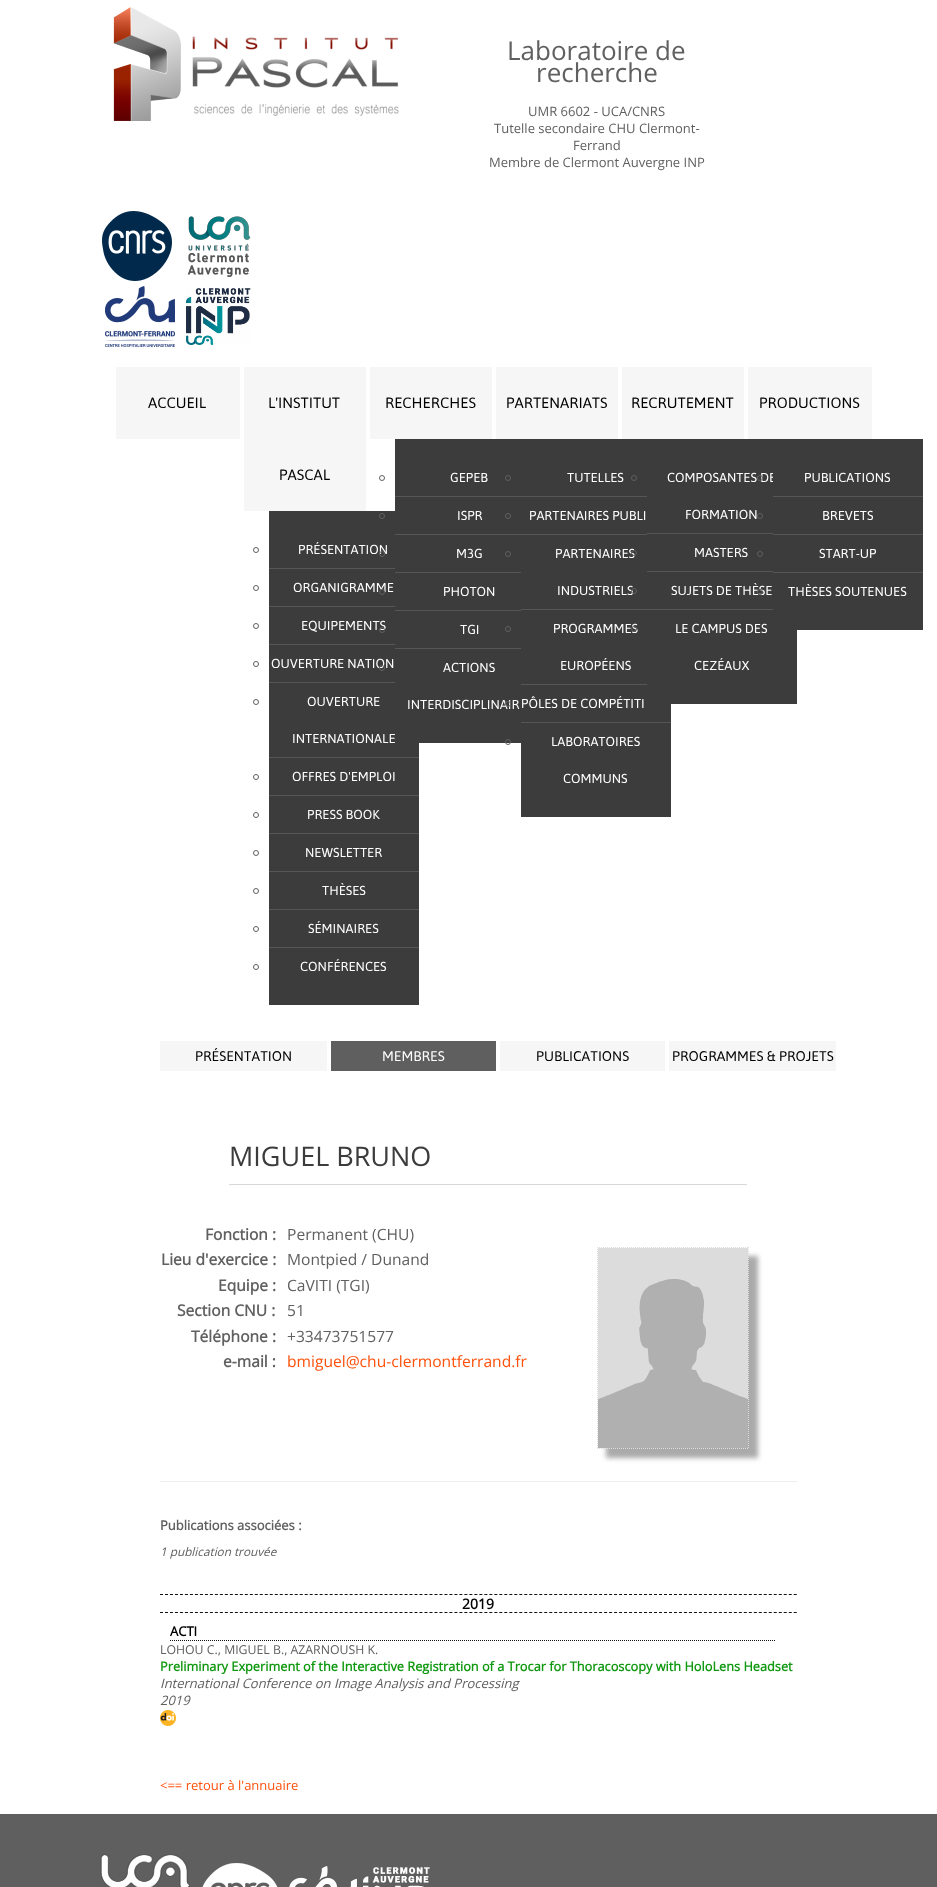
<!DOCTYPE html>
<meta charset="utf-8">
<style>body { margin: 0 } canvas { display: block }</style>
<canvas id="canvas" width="937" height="1887"></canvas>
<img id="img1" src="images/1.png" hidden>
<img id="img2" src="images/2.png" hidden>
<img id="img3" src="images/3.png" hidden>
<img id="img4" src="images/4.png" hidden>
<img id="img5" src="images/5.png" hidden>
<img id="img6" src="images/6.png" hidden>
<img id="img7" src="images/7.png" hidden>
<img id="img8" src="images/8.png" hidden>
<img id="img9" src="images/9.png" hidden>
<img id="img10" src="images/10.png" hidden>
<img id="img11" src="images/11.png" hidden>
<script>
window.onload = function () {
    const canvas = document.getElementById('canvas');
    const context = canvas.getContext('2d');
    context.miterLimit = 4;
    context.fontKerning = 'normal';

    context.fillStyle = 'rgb(255, 255, 255)';
    context.fillRect(0, 0, 937, 1887);
    context.drawImage(document.getElementById('img1'), 113, 7, 286, 114);
    context.drawImage(document.getElementById('img2'), 102, 211, 70, 70);
    context.drawImage(document.getElementById('img3'), 187, 216, 64, 61);
    context.drawImage(document.getElementById('img4'), 105, 286, 70, 61);
    context.drawImage(document.getElementById('img5'), 186, 288, 65, 57);
    context.fillStyle = 'rgb(246, 246, 246)';
    context.fillRect(116, 367, 124, 72);
    context.fillRect(244, 367, 122, 144);
    context.fillStyle = 'rgb(60, 60, 60)';
    context.fillRect(269, 511, 150, 494);
    context.beginPath();
    context.arc(256, 550, 2.5, 0, 2 * Math.PI);
    context.strokeStyle = 'rgb(96, 96, 96)';
    context.stroke();
    context.fillStyle = 'rgb(88, 86, 84)';
    context.fillRect(269, 568, 126, 1);
    context.beginPath();
    context.arc(256, 588, 2.5, 0, 2 * Math.PI);
    context.stroke();
    context.fillRect(269, 606, 126, 1);
    context.beginPath();
    context.arc(256, 626, 2.5, 0, 2 * Math.PI);
    context.stroke();
    context.fillRect(269, 644, 126, 1);
    context.beginPath();
    context.arc(256, 664, 2.5, 0, 2 * Math.PI);
    context.stroke();
    context.fillRect(269, 682, 126, 1);
    context.beginPath();
    context.arc(256, 702, 2.5, 0, 2 * Math.PI);
    context.stroke();
    context.fillRect(269, 757, 150, 1);
    context.beginPath();
    context.arc(256, 777, 2.5, 0, 2 * Math.PI);
    context.stroke();
    context.fillRect(269, 795, 150, 1);
    context.beginPath();
    context.arc(256, 815, 2.5, 0, 2 * Math.PI);
    context.stroke();
    context.fillRect(269, 833, 150, 1);
    context.beginPath();
    context.arc(256, 853, 2.5, 0, 2 * Math.PI);
    context.stroke();
    context.fillRect(269, 871, 150, 1);
    context.beginPath();
    context.arc(256, 891, 2.5, 0, 2 * Math.PI);
    context.stroke();
    context.fillRect(269, 909, 150, 1);
    context.beginPath();
    context.arc(256, 929, 2.5, 0, 2 * Math.PI);
    context.stroke();
    context.fillRect(269, 947, 150, 1);
    context.beginPath();
    context.arc(256, 967, 2.5, 0, 2 * Math.PI);
    context.stroke();
    context.fillStyle = 'rgb(246, 246, 246)';
    context.fillRect(370, 367, 122, 72);
    context.fillStyle = 'rgb(60, 60, 60)';
    context.fillRect(395, 439, 126, 304);
    context.beginPath();
    context.arc(382, 478, 2.5, 0, 2 * Math.PI);
    context.stroke();
    context.fillStyle = 'rgb(88, 86, 84)';
    context.fillRect(395, 496, 126, 1);
    context.beginPath();
    context.arc(382, 516, 2.5, 0, 2 * Math.PI);
    context.stroke();
    context.fillRect(395, 534, 126, 1);
    context.fillRect(395, 572, 126, 1);
    context.fillRect(395, 610, 126, 1);
    context.fillRect(395, 648, 126, 1);
    context.fillStyle = 'rgb(246, 246, 246)';
    context.fillRect(496, 367, 122, 72);
    context.fillStyle = 'rgb(60, 60, 60)';
    context.fillRect(521, 439, 150, 378);
    context.beginPath();
    context.arc(508, 478, 2.5, 0, 2 * Math.PI);
    context.stroke();
    context.fillStyle = 'rgb(88, 86, 84)';
    context.fillRect(521, 496, 126, 1);
    context.beginPath();
    context.arc(508, 516, 2.5, 0, 2 * Math.PI);
    context.stroke();
    context.fillRect(521, 534, 126, 1);
    context.beginPath();
    context.arc(508, 554, 2.5, 0, 2 * Math.PI);
    context.stroke();
    context.fillRect(521, 609, 126, 1);
    context.beginPath();
    context.arc(508, 629, 2.5, 0, 2 * Math.PI);
    context.stroke();
    context.fillRect(521, 684, 126, 1);
    context.fillRect(521, 722, 150, 1);
    context.beginPath();
    context.arc(508, 742, 2.5, 0, 2 * Math.PI);
    context.stroke();
    context.fillStyle = 'rgb(246, 246, 246)';
    context.fillRect(622, 367, 122, 72);
    context.fillStyle = 'rgb(60, 60, 60)';
    context.fillRect(671, 439, 126, 265);
    context.beginPath();
    context.arc(634, 478, 2.5, 0, 2 * Math.PI);
    context.stroke();
    context.fillStyle = 'rgb(88, 86, 84)';
    context.fillRect(647, 533, 126, 1);
    context.fillRect(647, 571, 126, 1);
    context.fillRect(647, 609, 126, 1);
    context.fillStyle = 'rgb(246, 246, 246)';
    context.fillRect(748, 367, 124, 72);
    context.beginPath();
    context.arc(760, 516, 2.5, 0, 2 * Math.PI);
    context.stroke();
    context.beginPath();
    context.arc(760, 554, 2.5, 0, 2 * Math.PI);
    context.stroke();
    context.fillRect(160, 1041, 167, 30);
    context.fillStyle = 'rgb(95, 95, 95)';
    context.fillRect(331, 1041, 165, 30);
    context.fillStyle = 'rgb(246, 246, 246)';
    context.fillRect(500, 1041, 165, 30);
    context.fillRect(669, 1041, 167, 30);
    context.fillStyle = 'rgb(216, 216, 216)';
    context.fillRect(229, 1184, 518, 1);
    context.fillStyle = 'rgb(170, 170, 170)';
    context.filter = 'blur(2.5px)';
    context.beginPath();
    context.rect(606, 1256, 152, 202);
    context.fill();
    context.filter = 'none';
    context.beginPath();
    context.moveTo(597, 1247.5);
    context.lineTo(749, 1247.5);
    context.strokeStyle = 'rgb(221, 221, 221)';
    context.setLineDash([1, 1]);
    context.stroke();
    context.beginPath();
    context.moveTo(597.5, 1247);
    context.lineTo(597.5, 1449);
    context.stroke();
    context.drawImage(document.getElementById('img6'), 598, 1248, 150, 200);
    context.beginPath();
    context.moveTo(748.5, 1247);
    context.lineTo(748.5, 1449);
    context.stroke();
    context.beginPath();
    context.moveTo(597, 1448.5);
    context.lineTo(749, 1448.5);
    context.stroke();
    context.fillStyle = 'rgb(238, 238, 238)';
    context.fillRect(160, 1481, 637, 1);
    context.beginPath();
    context.moveTo(160, 1594.5);
    context.lineTo(797, 1594.5);
    context.strokeStyle = 'rgb(17, 17, 17)';
    context.setLineDash([3, 1.99]);
    context.stroke();
    context.beginPath();
    context.moveTo(160, 1612.5);
    context.lineTo(797, 1612.5);
    context.stroke();
    context.beginPath();
    context.moveTo(170, 1640.5);
    context.lineTo(775, 1640.5);
    context.setLineDash([1, 1]);
    context.stroke();
    context.drawImage(document.getElementById('img7'), 160, 1710, 16, 16);
    context.fillStyle = 'rgb(95, 95, 95)';
    context.fillRect(0, 1814, 937, 73);
    context.drawImage(document.getElementById('img8'), 100, 1854, 90, 33);
    context.drawImage(document.getElementById('img9'), 202, 1863, 76, 24);
    context.drawImage(document.getElementById('img10'), 289, 1866, 68, 21);
    context.drawImage(document.getElementById('img11'), 363, 1867, 67, 20);
    context.font = '26px Open Sans';
    context.fillStyle = 'rgb(96, 96, 96)';
    context.fillText('Laboratoire de', 507, 60);
    context.fillText('recherche', 536, 82);
    context.font = '13px Open Sans';
    context.fillText('UMR 6602 - UCA/CNRS', 528, 116);
    context.fillText('Tutelle secondaire CHU Clermont-', 494, 133);
    context.fillText('Ferrand', 573, 150);
    context.fillText('Membre de Clermont Auvergne INP', 489, 167);
    context.font = '15px Asap';
    context.fillStyle = 'rgb(0, 0, 0)';
    context.fillText('ACCUEIL', 148, 408);
    context.fillText('L\'INSTITUT', 268, 408);
    context.fillText('PASCAL', 279, 480);
    context.font = '13px Asap';
    context.fillStyle = 'rgb(255, 255, 255)';
    context.fillText('PRÉSENTATION', 298, 554);
    context.fillText('ORGANIGRAMME', 293, 592);
    context.fillText('EQUIPEMENTS', 301, 630);
    context.fillText('OUVERTURE NATION', 271, 668);
    context.fillText('OUVERTURE', 307, 706);
    context.fillText('INTERNATIONALE', 292, 743);
    context.fillText('OFFRES D\'EMPLOI', 292, 781);
    context.fillText('PRESS BOOK', 307, 819);
    context.fillText('NEWSLETTER', 305, 857);
    context.fillText('THÈSES', 322, 895);
    context.fillText('SÉMINAIRES', 308, 933);
    context.fillText('CONFÉRENCES', 300, 971);
    context.font = '15px Asap';
    context.fillStyle = 'rgb(0, 0, 0)';
    context.fillText('RECHERCHES', 385, 408);
    context.font = '13px Asap';
    context.fillStyle = 'rgb(255, 255, 255)';
    context.fillText('GEPEB', 450, 482);
    context.fillText('ISPR', 457, 520);
    context.beginPath();
    context.arc(382, 554, 2.5, 0, 2 * Math.PI);
    context.strokeStyle = 'rgb(96, 96, 96)';
    context.setLineDash([]);
    context.stroke();
    context.fillText('M3G', 456, 558);
    context.beginPath();
    context.arc(382, 592, 2.5, 0, 2 * Math.PI);
    context.stroke();
    context.fillText('PHOTON', 443, 596);
    context.beginPath();
    context.arc(382, 630, 2.5, 0, 2 * Math.PI);
    context.stroke();
    context.fillText('TGI', 460, 634);
    context.beginPath();
    context.arc(382, 668, 2.5, 0, 2 * Math.PI);
    context.stroke();
    context.fillText('ACTIONS', 443, 672);
    context.fillText('INTERDISCIPLINAIR', 407, 709);
    context.font = '15px Asap';
    context.fillStyle = 'rgb(0, 0, 0)';
    context.fillText('PARTENARIATS', 506, 408);
    context.font = '13px Asap';
    context.fillStyle = 'rgb(255, 255, 255)';
    context.fillText('TUTELLES', 567, 482);
    context.fillText('PARTENAIRES PUBLI', 529, 520);
    context.fillText('PARTENAIRES', 555, 558);
    context.fillText('INDUSTRIELS', 557, 595);
    context.fillText('PROGRAMMES', 553, 633);
    context.fillText('EUROPÉENS', 560, 670);
    context.beginPath();
    context.arc(508, 704, 2.5, 0, 2 * Math.PI);
    context.stroke();
    context.fillText('PÔLES DE COMPÉTITI', 521, 708);
    context.fillText('LABORATOIRES', 551, 746);
    context.fillText('COMMUNS', 563, 783);
    context.font = '15px Asap';
    context.fillStyle = 'rgb(0, 0, 0)';
    context.fillText('RECRUTEMENT', 631, 408);
    context.font = '13px Asap';
    context.fillStyle = 'rgb(255, 255, 255)';
    context.fillText('COMPOSANTES DE', 667, 482);
    context.fillText('FORMATION', 685, 519);
    context.beginPath();
    context.arc(634, 553, 2.5, 0, 2 * Math.PI);
    context.stroke();
    context.fillText('MASTERS', 694, 557);
    context.beginPath();
    context.arc(634, 591, 2.5, 0, 2 * Math.PI);
    context.stroke();
    context.fillText('SUJETS DE THÈSE', 671, 595);
    context.beginPath();
    context.arc(634, 629, 2.5, 0, 2 * Math.PI);
    context.stroke();
    context.fillText('LE CAMPUS DES', 675, 633);
    context.fillText('CEZÉAUX', 694, 670);
    context.font = '15px Asap';
    context.fillStyle = 'rgb(0, 0, 0)';
    context.fillText('PRODUCTIONS', 759, 408);
    context.fillStyle = 'rgb(60, 60, 60)';
    context.fillRect(773, 439, 150, 191);
    context.beginPath();
    context.arc(760, 478, 2.5, 0, 2 * Math.PI);
    context.stroke();
    context.font = '13px Asap';
    context.fillStyle = 'rgb(255, 255, 255)';
    context.fillText('PUBLICATIONS', 804, 482);
    context.fillStyle = 'rgb(88, 86, 84)';
    context.fillRect(773, 496, 150, 1);
    context.fillStyle = 'rgb(255, 255, 255)';
    context.fillText('BREVETS', 822, 520);
    context.fillStyle = 'rgb(88, 86, 84)';
    context.fillRect(773, 534, 150, 1);
    context.fillStyle = 'rgb(255, 255, 255)';
    context.fillText('START-UP', 819, 558);
    context.fillStyle = 'rgb(88, 86, 84)';
    context.fillRect(773, 572, 150, 1);
    context.beginPath();
    context.arc(760, 592, 2.5, 0, 2 * Math.PI);
    context.stroke();
    context.fillStyle = 'rgb(255, 255, 255)';
    context.fillText('THÈSES SOUTENUES', 788, 596);
    context.font = '14px Asap';
    context.fillStyle = 'rgb(0, 0, 0)';
    context.fillText('PRÉSENTATION', 195, 1061);
    context.fillStyle = 'rgb(255, 255, 255)';
    context.fillText('MEMBRES', 382, 1061);
    context.fillStyle = 'rgb(0, 0, 0)';
    context.fillText('PUBLICATIONS', 536, 1061);
    context.fillText('PROGRAMMES & PROJETS', 672, 1061);
    context.font = '27px Open Sans';
    context.fillStyle = 'rgb(60, 60, 60)';
    context.fillText('MIGUEL BRUNO', 229, 1166);
    context.font = 'bold 15.6px Open Sans';
    context.fillStyle = 'rgb(96, 96, 96)';
    context.fillText('Fonction :', 205, 1240);
    context.font = '15.6px Open Sans';
    context.fillText('Permanent (CHU)', 287, 1240);
    context.font = 'bold 15.6px Open Sans';
    context.fillText('Lieu d\'exercice :', 161, 1265);
    context.font = '15.6px Open Sans';
    context.fillText('Montpied / Dunand', 287, 1265);
    context.font = 'bold 15.6px Open Sans';
    context.fillText('Equipe :', 218, 1291);
    context.font = '15.6px Open Sans';
    context.fillText('CaVITI (TGI)', 287, 1291);
    context.font = 'bold 15.6px Open Sans';
    context.fillText('Section CNU :', 177, 1316);
    context.font = '15.6px Open Sans';
    context.fillText('51', 287, 1316);
    context.font = 'bold 15.6px Open Sans';
    context.fillText('Téléphone :', 191, 1342);
    context.font = '15.6px Open Sans';
    context.fillText('+33473751577', 287, 1342);
    context.font = 'bold 15.6px Open Sans';
    context.fillText('e-mail :', 223, 1367);
    context.font = '15.6px Open Sans';
    context.fillStyle = 'rgb(255, 81, 11)';
    context.fillText('bmiguel@chu-clermontferrand.fr', 287, 1367);
    context.font = 'bold 13px Open Sans';
    context.fillStyle = 'rgb(96, 96, 96)';
    context.fillText('Publications associées :', 160, 1530);
    context.font = 'italic 11.75px Open Sans';
    context.fillText('1 publication trouvée', 160, 1556);
    context.font = 'bold 14px Open Sans';
    context.fillStyle = 'rgb(0, 0, 0)';
    context.fillText('2019', 462, 1609);
    context.font = 'bold 13px Open Sans';
    context.fillText('ACTI', 170, 1636);
    context.font = '12.3px Open Sans';
    context.fillStyle = 'rgb(96, 96, 96)';
    context.fillText('LOHOU C., MIGUEL B., AZARNOUSH K.', 160, 1654);
    context.font = 'bold 12.75px Open Sans';
    context.fillStyle = 'rgb(17, 153, 17)';
    context.fillText('Preliminary Experiment of the Interactive Registration of a Trocar for Thoracoscopy with HoloLens Headset', 160, 1671);
    context.font = 'italic 13px Open Sans';
    context.fillStyle = 'rgb(96, 96, 96)';
    context.fillText('International Conference on Image Analysis and Processing', 160, 1688);
    context.fillText('2019', 160, 1705);
    context.font = '13px Open Sans';
    context.fillStyle = 'rgb(255, 81, 11)';
    context.fillText('<== retour à l\'annuaire', 160, 1790);
};
</script>
